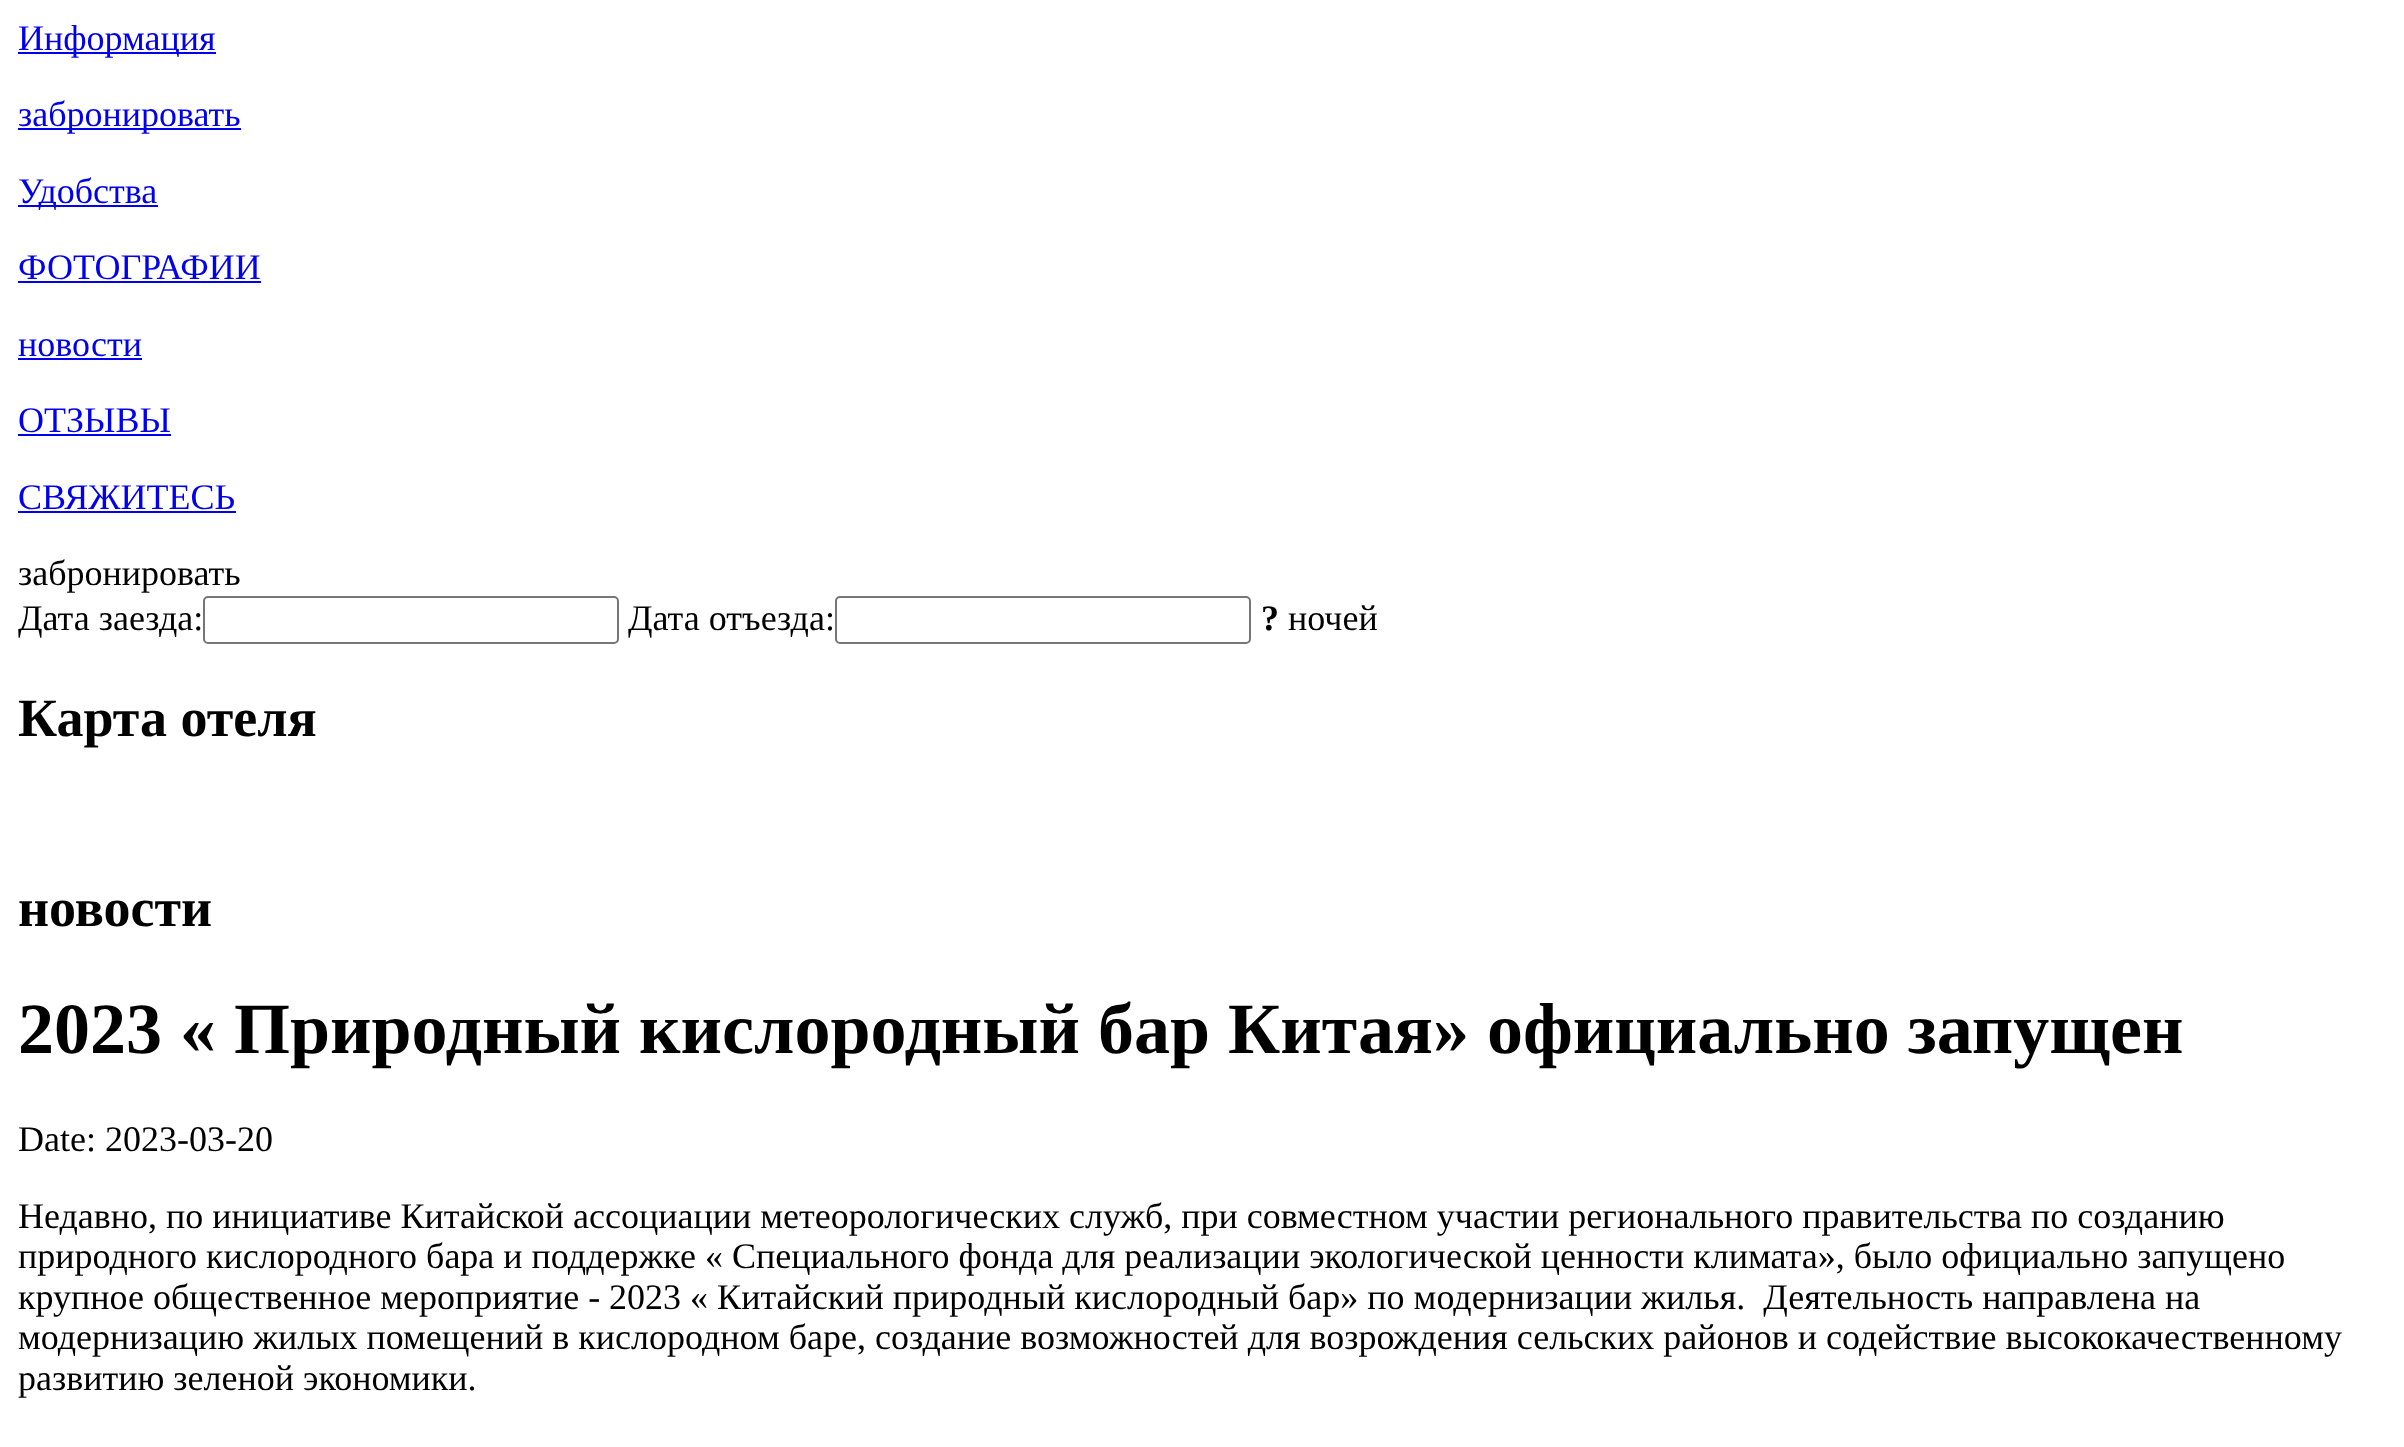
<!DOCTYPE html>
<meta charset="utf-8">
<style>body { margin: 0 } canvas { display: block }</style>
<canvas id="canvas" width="2404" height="1447"></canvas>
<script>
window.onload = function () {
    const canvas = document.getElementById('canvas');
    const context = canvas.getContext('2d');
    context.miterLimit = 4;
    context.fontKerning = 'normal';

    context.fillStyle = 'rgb(255, 255, 255)';
    context.fillRect(0, 0, 2404, 1447);
    context.fillStyle = 'rgb(0, 0, 238)';
    context.fillRect(18, 52, 198, 2);
    context.fillRect(18, 128, 223, 2);
    context.fillRect(18, 205, 140, 2);
    context.fillRect(18, 281, 243, 2);
    context.fillRect(18, 358, 124, 2);
    context.fillRect(18, 434, 153, 2);
    context.fillRect(18, 511, 218, 2);
    context.beginPath();
    context.roundRect(204, 597, 414, 46, 4);
    context.strokeStyle = 'rgb(118, 118, 118)';
    context.lineWidth = 2;
    context.stroke();
    context.beginPath();
    context.roundRect(836, 597, 414, 46, 4);
    context.stroke();
    context.font = '36px Liberation Serif';
    context.fillText('Информация', 18, 50);
    context.fillText('забронировать', 18, 126);
    context.fillText('Удобства', 18, 203);
    context.fillText('ФОТОГРАФИИ', 18, 279);
    context.fillText('новости', 18, 356);
    context.fillText('ОТЗЫВЫ', 18, 432);
    context.fillText('СВЯЖИТЕСЬ', 18, 509);
    context.fillStyle = 'rgb(0, 0, 0)';
    context.fillText('забронировать', 18, 585);
    context.fillText('Дата заезда:', 18, 630);
    context.fillText('Дата отъезда:', 628, 630);
    context.font = 'bold 36px Liberation Serif';
    context.fillText('?', 1261, 630);
    context.font = '36px Liberation Serif';
    context.fillText('ночей', 1288, 630);
    context.font = 'bold 54px Liberation Serif';
    context.fillText('Карта отеля', 18, 736);
    context.fillText('новости', 18, 926);
    context.font = 'bold 72px Liberation Serif';
    context.fillText('2023 « Природный кислородный бар Китая» официально запущен', 18, 1053);
    context.font = '36px Liberation Serif';
    context.fillText('Date: 2023-03-20', 18, 1151);
    context.fillText('Недавно, по инициативе Китайской ассоциации метеорологических служб, при совместном участии регионального правительства по созданию', 18, 1228);
    context.fillText('природного кислородного бара и поддержке « Специального фонда для реализации экологической ценности климата», было официально запущено', 18, 1268);
    context.fillText('крупное общественное мероприятие - 2023 « Китайский природный кислородный бар» по модернизации жилья.  Деятельность направлена на', 18, 1309);
    context.fillText('модернизацию жилых помещений в кислородном баре, создание возможностей для возрождения сельских районов и содействие высококачественному', 18, 1349);
    context.fillText('развитию зеленой экономики.', 18, 1390);
};
</script>
